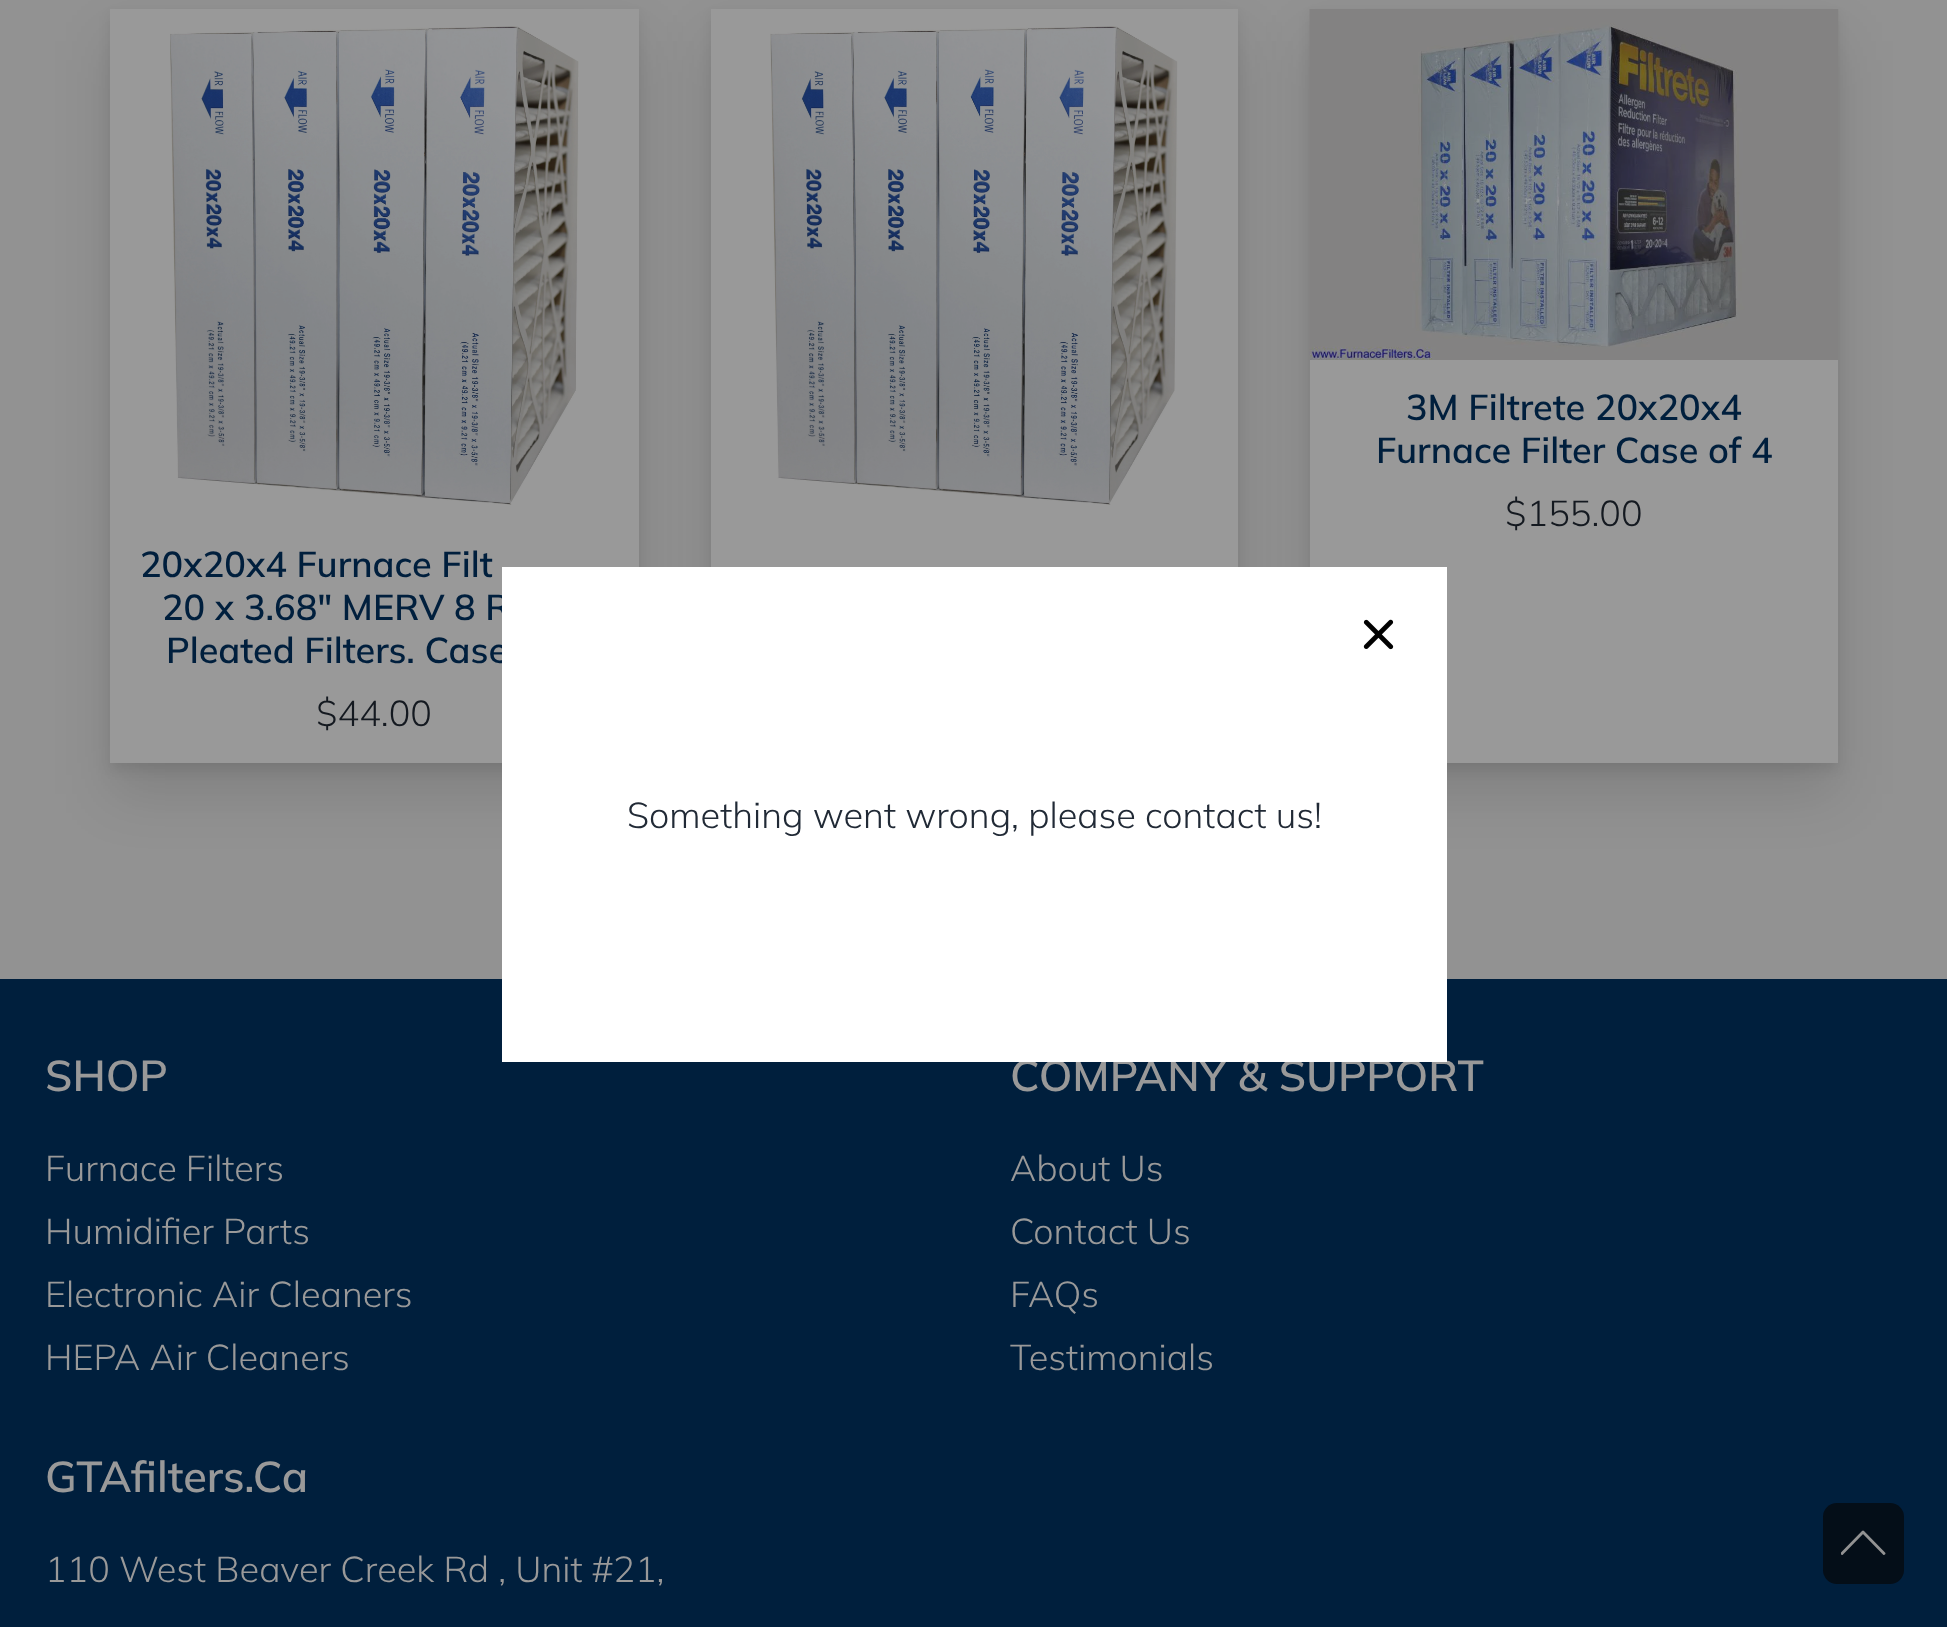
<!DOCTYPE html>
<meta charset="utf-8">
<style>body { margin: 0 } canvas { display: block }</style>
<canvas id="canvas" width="1947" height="1627"></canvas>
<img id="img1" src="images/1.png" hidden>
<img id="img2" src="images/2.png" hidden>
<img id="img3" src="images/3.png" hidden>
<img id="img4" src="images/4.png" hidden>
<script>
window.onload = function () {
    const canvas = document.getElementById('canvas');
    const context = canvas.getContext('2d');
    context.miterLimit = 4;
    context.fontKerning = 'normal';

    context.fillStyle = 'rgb(146, 146, 146)';
    context.fillRect(0, 0, 1947, 1627);
    context.fillStyle = 'rgba(0, 0, 0, 0.12)';
    context.filter = 'blur(28px)';
    context.beginPath();
    context.rect(110, 41, 529, 753);
    context.fill();
    context.filter = 'none';
    context.fillStyle = 'rgba(0, 0, 0, 0.08)';
    context.filter = 'blur(6px)';
    context.beginPath();
    context.rect(110, 16, 529, 754);
    context.fill();
    context.filter = 'none';
    context.fillStyle = 'rgb(153, 153, 153)';
    context.fillRect(110, 9, 529, 754);
    context.fillStyle = 'rgba(0, 0, 0, 0.12)';
    context.filter = 'blur(28px)';
    context.beginPath();
    context.rect(711, 41, 527, 753);
    context.fill();
    context.filter = 'none';
    context.fillStyle = 'rgba(0, 0, 0, 0.08)';
    context.filter = 'blur(6px)';
    context.beginPath();
    context.rect(711, 16, 527, 754);
    context.fill();
    context.filter = 'none';
    context.fillStyle = 'rgb(153, 153, 153)';
    context.fillRect(711, 9, 527, 558);
    context.drawImage(document.getElementById('img1'), 770, 26, 408, 479);
    context.fillStyle = 'rgba(0, 0, 0, 0.12)';
    context.filter = 'blur(28px)';
    context.beginPath();
    context.rect(1310, 41, 528, 753);
    context.fill();
    context.filter = 'none';
    context.fillStyle = 'rgba(0, 0, 0, 0.08)';
    context.filter = 'blur(6px)';
    context.beginPath();
    context.rect(1310, 16, 528, 754);
    context.fill();
    context.filter = 'none';
    context.fillStyle = 'rgb(153, 153, 153)';
    context.fillRect(1310, 360, 528, 403);
    context.drawImage(document.getElementById('img2'), 1309, 9, 530, 351);
    context.drawImage(document.getElementById('img3'), 170, 26, 409, 479);
    context.fillStyle = 'rgb(0, 31, 61)';
    context.fillRect(0, 979, 1947, 648);
    context.fillStyle = 'rgb(4, 14, 24)';
    context.beginPath();
    context.roundRect(1823, 1503, 81, 81, 14);
    context.fill();
    context.save();
    context.beginPath();
    context.rect(1841, 1521, 45, 45);
    context.clip();
    context.beginPath();
    context.moveTo(1884, 1553.5);
    context.lineTo(1863, 1532);
    context.lineTo(1842, 1553.5);
    context.strokeStyle = 'rgb(146, 146, 146)';
    context.lineWidth = 2.8;
    context.lineCap = 'round';
    context.lineJoin = 'round';
    context.stroke();
    context.restore();
    context.font = '600 36px Mulish';
    context.fillStyle = 'rgb(0, 31, 61)';
    context.fillText('3M Filtrete 20x20x4', 1406, 420);
    context.fillText('Furnace Filter Case of 4', 1376, 463);
    context.font = '300 36px Mulish';
    context.fillStyle = 'rgb(20, 25, 32)';
    context.fillText('$155.00', 1505, 526);
    context.font = '600 36px Mulish';
    context.fillStyle = 'rgb(0, 31, 61)';
    context.fillText('20x20x4 Furnace Filt', 140, 577);
    context.fillText('20 x 3.68" MERV 8 R', 162, 620);
    context.fillText('Pleated Filters. Case', 166, 663);
    context.font = '300 36px Mulish';
    context.fillStyle = 'rgb(20, 25, 32)';
    context.fillText('$44.00', 316, 726);
    context.font = '600 43.25px Mulish';
    context.fillStyle = 'rgb(153, 153, 153)';
    context.fillText('SHOP', 45, 1091);
    context.font = '300 36px Mulish';
    context.fillText('Furnace Filters', 45, 1181);
    context.fillText('Humidifier Parts', 45, 1244);
    context.fillText('Electronic Air Cleaners', 45, 1307);
    context.fillText('HEPA Air Cleaners', 45, 1370);
    context.font = '600 43.25px Mulish';
    context.fillText('COMPANY & SUPPORT', 1010, 1091);
    context.fillStyle = 'rgb(255, 255, 255)';
    context.fillRect(502, 567, 945, 495);
    context.drawImage(document.getElementById('img4'), 1363, 619, 31, 31);
    context.font = '300 36px Mulish';
    context.fillStyle = 'rgb(33, 42, 54)';
    context.fillText('Something went wrong, please contact us!', 627, 828);
    context.fillStyle = 'rgb(153, 153, 153)';
    context.fillText('About Us', 1010, 1181);
    context.fillText('Contact Us', 1010, 1244);
    context.fillText('FAQs', 1010, 1307);
    context.fillText('Testimonials', 1010, 1370);
    context.font = '600 43.25px Mulish';
    context.fillText('GTAfilters.Ca', 45, 1492);
    context.font = '300 36px Mulish';
    context.fillText('110 West Beaver Creek Rd , Unit #21,', 45, 1582);
};
</script>
